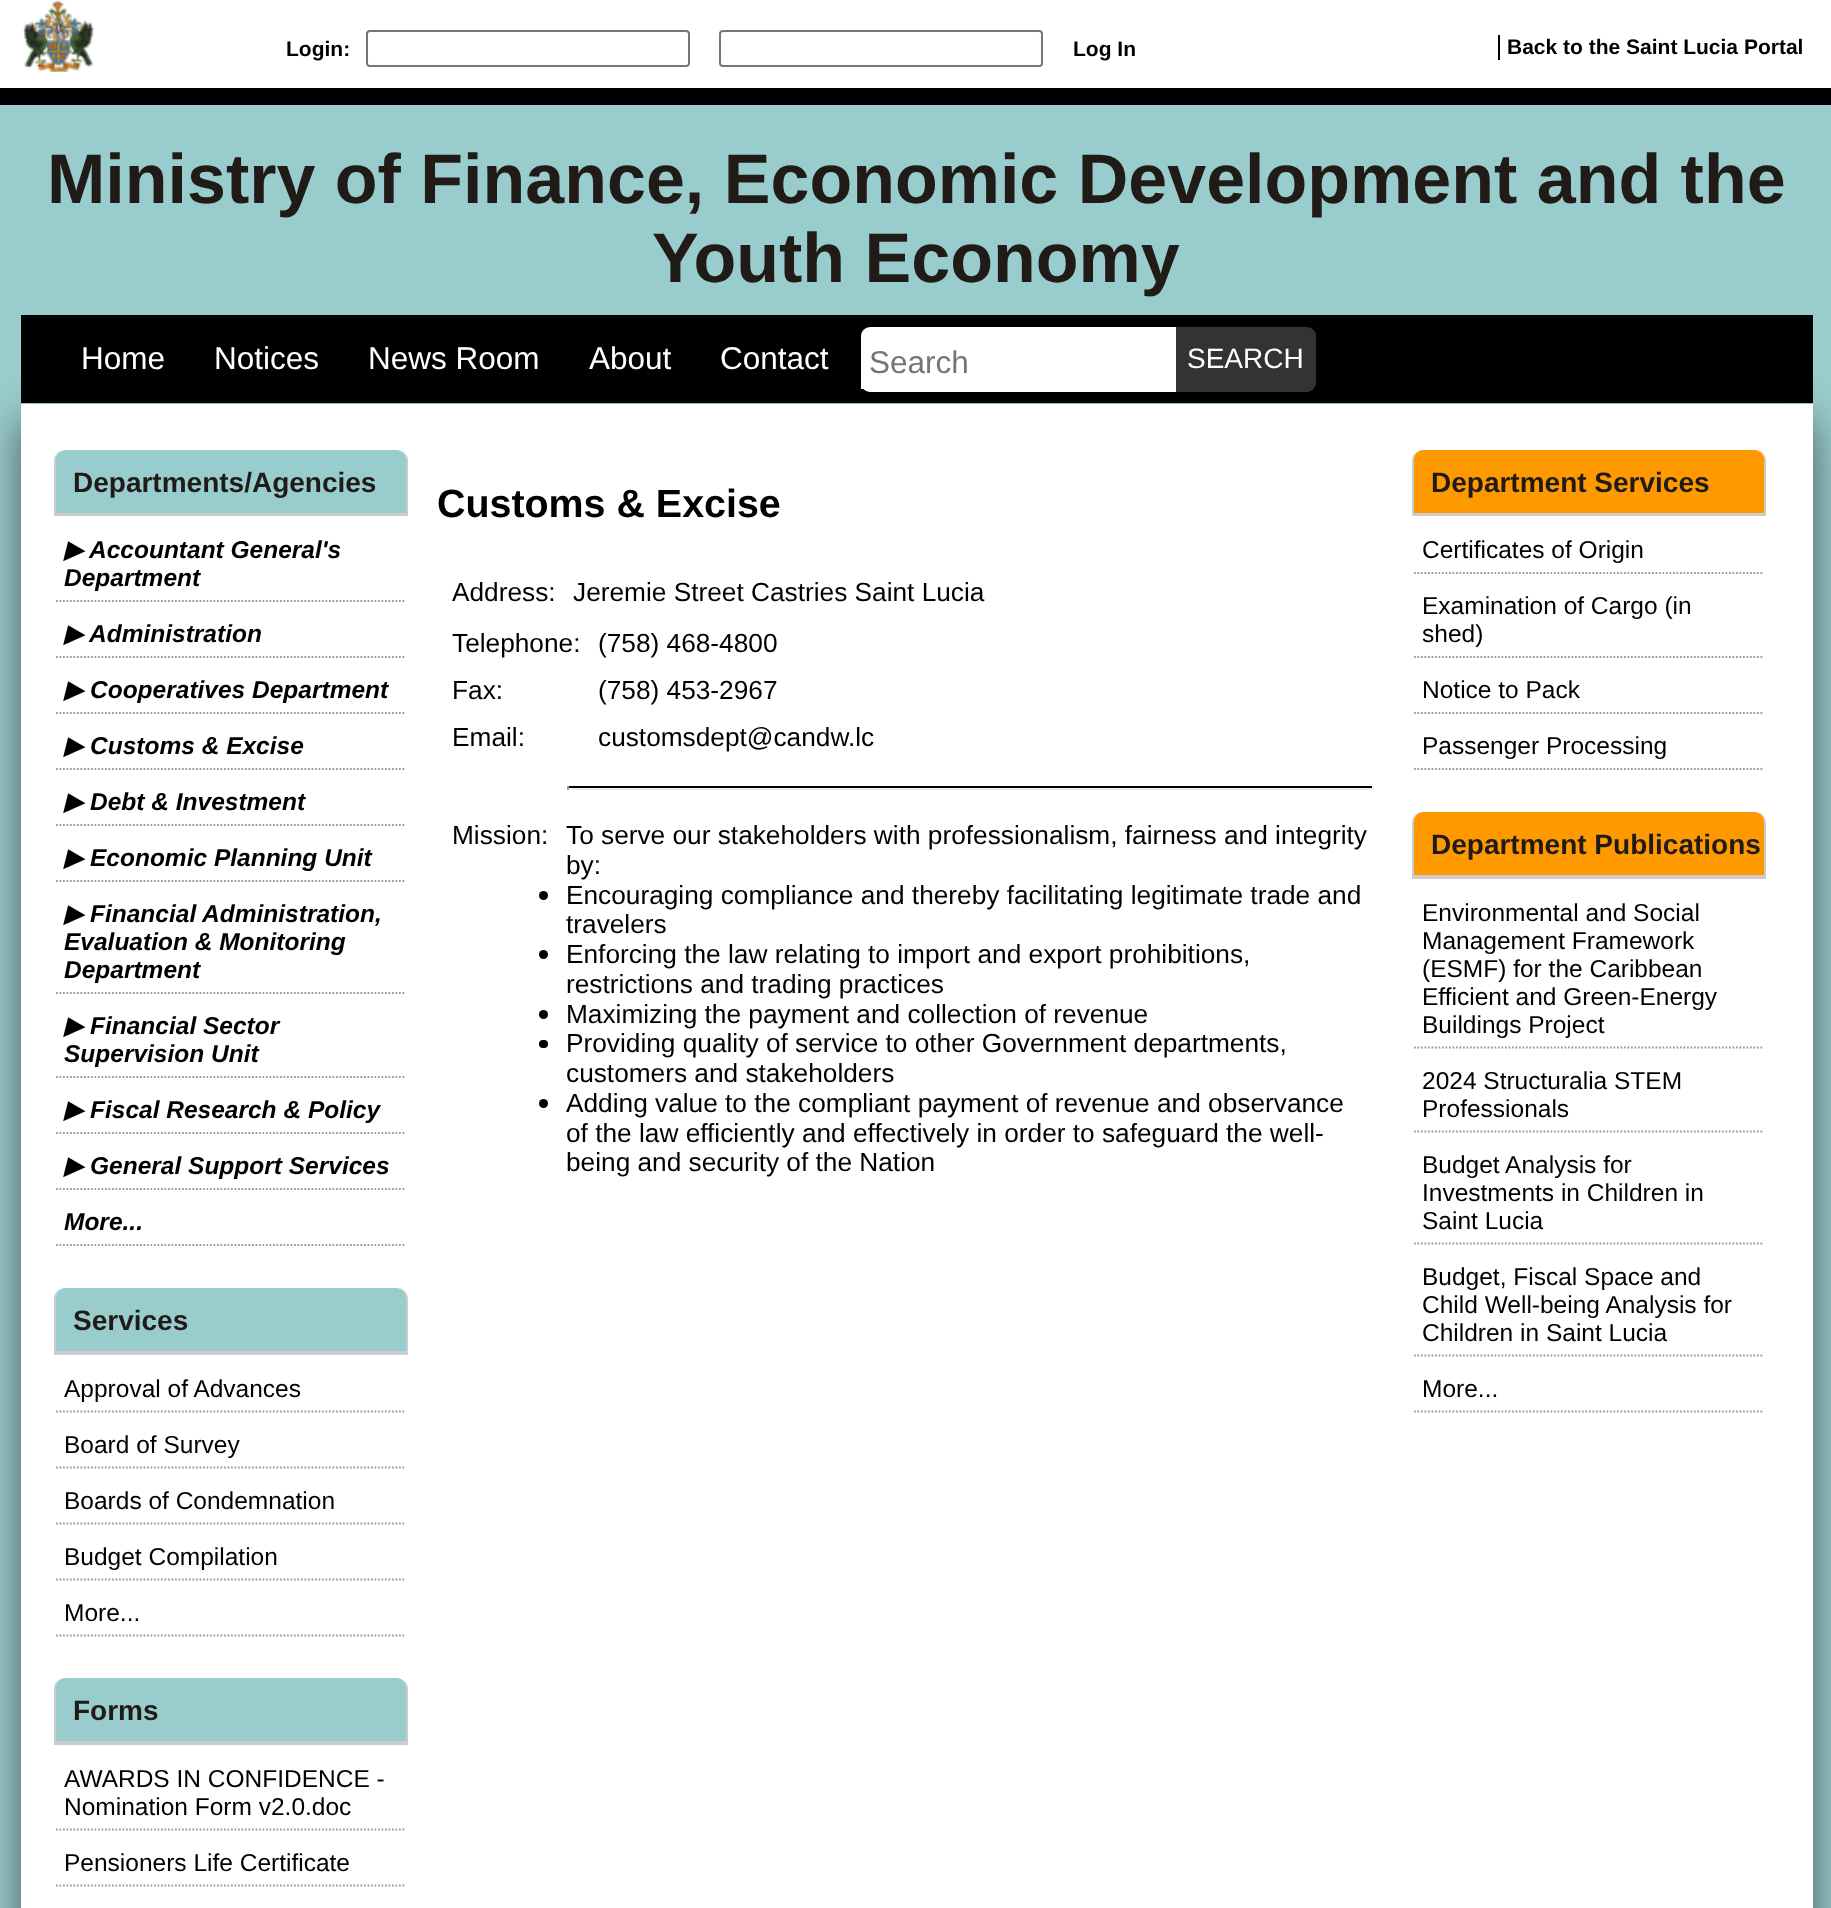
<!DOCTYPE html>
<meta charset="utf-8">
<style>body { margin: 0 } canvas { display: block }</style>
<canvas id="canvas" width="1831" height="1908"></canvas>
<img id="img1" src="images/1.png" hidden>
<script>
window.onload = function () {
    const canvas = document.getElementById('canvas');
    const context = canvas.getContext('2d');
    context.miterLimit = 4;
    context.fontKerning = 'normal';

    context.fillStyle = 'rgb(153, 204, 204)';
    context.fillRect(0, 0, 1831, 1908);
    context.fillStyle = 'rgb(255, 255, 255)';
    context.fillRect(0, 0, 1831, 88);
    context.fillStyle = 'rgb(0, 0, 0)';
    context.fillRect(0, 88, 1831, 17);
    context.drawImage(document.getElementById('img1'), 22, 0, 72, 72);
    context.beginPath();
    context.roundRect(367, 31, 322, 35, 3);
    context.strokeStyle = 'rgb(118, 118, 118)';
    context.lineWidth = 2;
    context.stroke();
    context.beginPath();
    context.roundRect(720, 31, 322, 35, 3);
    context.stroke();
    context.fillRect(1498, 35, 2, 25);
    context.fillStyle = 'rgba(50, 50, 50, 0.75)';
    context.filter = 'blur(20px)';
    context.beginPath();
    context.rect(21, 422, 1792, 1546);
    context.fill();
    context.filter = 'none';
    context.fillStyle = 'rgb(0, 0, 0)';
    context.fillRect(21, 315, 1792, 88);
    context.fillStyle = 'rgb(255, 255, 255)';
    context.beginPath();
    context.roundRect(861, 327, 315, 65, [9, 0, 0, 9]);
    context.fill();
    context.fillRect(861, 383, 3, 6);
    context.fillStyle = 'rgb(51, 51, 51)';
    context.beginPath();
    context.roundRect(1176, 327, 140, 65, [0, 9, 9, 0]);
    context.fill();
    context.fillStyle = 'rgb(255, 255, 255)';
    context.fillRect(21, 404, 1792, 1504);
    context.fillStyle = 'rgb(204, 204, 204)';
    context.beginPath();
    context.moveTo(60, 451);
    context.bezierCurveTo(56, 453, 54, 457, 54, 461);
    context.lineTo(54, 516);
    context.lineTo(408, 516);
    context.lineTo(408, 461);
    context.bezierCurveTo(408, 457, 406, 453, 402, 451);
    context.bezierCurveTo(405, 453, 406, 456, 406, 458);
    context.lineTo(406, 513);
    context.lineTo(56, 513);
    context.lineTo(56, 458);
    context.bezierCurveTo(56, 456, 57, 453, 60, 451);
    context.closePath();
    context.fill();
    context.fillStyle = 'rgb(153, 204, 204)';
    context.beginPath();
    context.roundRect(56, 450, 350, 63, [9, 9, 0, 0]);
    context.fill();
    context.beginPath();
    context.moveTo(56, 601);
    context.lineTo(406, 601);
    context.strokeStyle = 'rgb(153, 153, 153)';
    context.lineWidth = 1.8;
    context.setLineDash([1.75, 1.75]);
    context.stroke();
    context.beginPath();
    context.moveTo(56, 657);
    context.lineTo(406, 657);
    context.stroke();
    context.beginPath();
    context.moveTo(56, 713);
    context.lineTo(406, 713);
    context.stroke();
    context.beginPath();
    context.moveTo(56, 769);
    context.lineTo(406, 769);
    context.stroke();
    context.beginPath();
    context.moveTo(56, 825);
    context.lineTo(406, 825);
    context.stroke();
    context.beginPath();
    context.moveTo(56, 881);
    context.lineTo(406, 881);
    context.stroke();
    context.beginPath();
    context.moveTo(56, 993);
    context.lineTo(406, 993);
    context.stroke();
    context.beginPath();
    context.moveTo(56, 1077);
    context.lineTo(406, 1077);
    context.stroke();
    context.beginPath();
    context.moveTo(56, 1133);
    context.lineTo(406, 1133);
    context.stroke();
    context.beginPath();
    context.moveTo(56, 1189);
    context.lineTo(406, 1189);
    context.stroke();
    context.beginPath();
    context.moveTo(56, 1245);
    context.lineTo(406, 1245);
    context.stroke();
    context.fillStyle = 'rgb(204, 204, 204)';
    context.beginPath();
    context.moveTo(399, 1288);
    context.bezierCurveTo(403, 1289, 406, 1293, 406, 1297);
    context.lineTo(406, 1351);
    context.lineTo(56, 1351);
    context.lineTo(56, 1297);
    context.bezierCurveTo(56, 1293, 59, 1289, 63, 1288);
    context.bezierCurveTo(58, 1289, 54, 1294, 54, 1299);
    context.lineTo(54, 1355);
    context.lineTo(408, 1355);
    context.lineTo(408, 1299);
    context.bezierCurveTo(408, 1294, 404, 1289, 399, 1288);
    context.closePath();
    context.fill();
    context.fillStyle = 'rgb(153, 204, 204)';
    context.beginPath();
    context.roundRect(56, 1288, 350, 63, [9, 9, 0, 0]);
    context.fill();
    context.beginPath();
    context.moveTo(56, 1411.5);
    context.lineTo(406, 1411.5);
    context.stroke();
    context.beginPath();
    context.moveTo(56, 1467.5);
    context.lineTo(406, 1467.5);
    context.stroke();
    context.beginPath();
    context.moveTo(56, 1523.5);
    context.lineTo(406, 1523.5);
    context.stroke();
    context.beginPath();
    context.moveTo(56, 1579.5);
    context.lineTo(406, 1579.5);
    context.stroke();
    context.beginPath();
    context.moveTo(56, 1635.5);
    context.lineTo(406, 1635.5);
    context.stroke();
    context.fillStyle = 'rgb(204, 204, 204)';
    context.beginPath();
    context.moveTo(65, 1678);
    context.bezierCurveTo(59, 1678, 54, 1683, 54, 1689);
    context.lineTo(54, 1745);
    context.lineTo(408, 1745);
    context.lineTo(408, 1689);
    context.bezierCurveTo(408, 1683, 403, 1678, 397, 1678);
    context.closePath();
    context.moveTo(65, 1678);
    context.bezierCurveTo(60, 1678, 56, 1682, 56, 1687);
    context.lineTo(56, 1741);
    context.lineTo(406, 1741);
    context.lineTo(406, 1687);
    context.bezierCurveTo(406, 1682, 402, 1678, 397, 1678);
    context.closePath();
    context.fill('evenodd');
    context.fillStyle = 'rgb(153, 204, 204)';
    context.beginPath();
    context.roundRect(56, 1678, 350, 63, [9, 9, 0, 0]);
    context.fill();
    context.beginPath();
    context.moveTo(56, 1829.5);
    context.lineTo(406, 1829.5);
    context.stroke();
    context.beginPath();
    context.moveTo(56, 1885.5);
    context.lineTo(406, 1885.5);
    context.stroke();
    context.fillStyle = 'rgb(0, 0, 0)';
    context.fillRect(567, 786, 807, 2);
    context.fillStyle = 'rgb(238, 238, 238)';
    context.fillRect(1372, 786, 2, 4);
    context.fillRect(567, 788, 807, 2);
    context.fillStyle = 'rgb(159, 159, 159)';
    context.fillRect(567, 786, 2, 4);
    context.fillStyle = 'rgb(0, 0, 0)';
    context.beginPath();
    context.arc(543.5, 895.5, 4.5, 0, 2 * Math.PI);
    context.fill();
    context.beginPath();
    context.arc(543.5, 954.5, 4.5, 0, 2 * Math.PI);
    context.fill();
    context.beginPath();
    context.arc(543.5, 1014.5, 4.5, 0, 2 * Math.PI);
    context.fill();
    context.beginPath();
    context.roundRect(539, 1040, 9, 8, 4);
    context.fill();
    context.beginPath();
    context.arc(543.5, 1103.5, 4.5, 0, 2 * Math.PI);
    context.fill();
    context.fillStyle = 'rgb(204, 204, 204)';
    context.beginPath();
    context.moveTo(1418, 451);
    context.bezierCurveTo(1414, 453, 1412, 457, 1412, 461);
    context.lineTo(1412, 516);
    context.lineTo(1766, 516);
    context.lineTo(1766, 461);
    context.bezierCurveTo(1766, 457, 1764, 453, 1760, 451);
    context.bezierCurveTo(1763, 453, 1764, 456, 1764, 458);
    context.lineTo(1764, 513);
    context.lineTo(1414, 513);
    context.lineTo(1414, 458);
    context.bezierCurveTo(1414, 456, 1415, 453, 1418, 451);
    context.closePath();
    context.fill();
    context.fillStyle = 'rgb(255, 153, 0)';
    context.beginPath();
    context.roundRect(1414, 450, 350, 63, [9, 9, 0, 0]);
    context.fill();
    context.beginPath();
    context.moveTo(1414, 573);
    context.lineTo(1764, 573);
    context.stroke();
    context.beginPath();
    context.moveTo(1414, 657);
    context.lineTo(1764, 657);
    context.stroke();
    context.beginPath();
    context.moveTo(1414, 713);
    context.lineTo(1764, 713);
    context.stroke();
    context.beginPath();
    context.moveTo(1414, 769);
    context.lineTo(1764, 769);
    context.stroke();
    context.fillStyle = 'rgb(204, 204, 204)';
    context.beginPath();
    context.moveTo(1757, 812);
    context.bezierCurveTo(1761, 813, 1764, 817, 1764, 821);
    context.lineTo(1764, 875);
    context.lineTo(1414, 875);
    context.lineTo(1414, 821);
    context.bezierCurveTo(1414, 817, 1417, 813, 1421, 812);
    context.bezierCurveTo(1416, 813, 1412, 818, 1412, 823);
    context.lineTo(1412, 879);
    context.lineTo(1766, 879);
    context.lineTo(1766, 823);
    context.bezierCurveTo(1766, 818, 1762, 813, 1757, 812);
    context.closePath();
    context.fill();
    context.fillStyle = 'rgb(255, 153, 0)';
    context.beginPath();
    context.roundRect(1414, 812, 350, 63, [9, 9, 0, 0]);
    context.fill();
    context.beginPath();
    context.moveTo(1414, 1047.5);
    context.lineTo(1764, 1047.5);
    context.stroke();
    context.beginPath();
    context.moveTo(1414, 1131.5);
    context.lineTo(1764, 1131.5);
    context.stroke();
    context.beginPath();
    context.moveTo(1414, 1243.5);
    context.lineTo(1764, 1243.5);
    context.stroke();
    context.beginPath();
    context.moveTo(1414, 1355.5);
    context.lineTo(1764, 1355.5);
    context.stroke();
    context.beginPath();
    context.moveTo(1414, 1411.5);
    context.lineTo(1764, 1411.5);
    context.stroke();
    context.font = 'bold 21px Liberation Sans';
    context.fillStyle = 'rgb(0, 0, 0)';
    context.fillText('Login:', 286, 56);
    context.fillText('Log In', 1073, 56);
    context.fillText('Back to the Saint Lucia Portal', 1507, 54);
    context.font = 'bold 70px Liberation Sans';
    context.fillStyle = 'rgb(33, 27, 24)';
    context.fillText('Ministry of Finance, Economic Development and the', 47, 203);
    context.fillText('Youth Economy', 652, 282);
    context.font = '31.5px Liberation Sans';
    context.fillStyle = 'rgb(255, 255, 255)';
    context.fillText('Home', 81, 369);
    context.fillText('Notices', 214, 369);
    context.fillText('News Room', 368, 369);
    context.fillText('About', 589, 369);
    context.fillText('Contact', 720, 369);
    context.fillStyle = 'rgb(117, 117, 117)';
    context.fillText('Search', 869, 373);
    context.font = '28px Liberation Sans';
    context.fillStyle = 'rgb(255, 255, 255)';
    context.fillText('SEARCH', 1187, 368);
    context.font = 'bold 28px Liberation Sans';
    context.fillStyle = 'rgb(33, 27, 24)';
    context.fillText('Departments/Agencies', 73, 492);
    context.font = 'italic bold 24.5px DejaVu Sans';
    context.fillStyle = 'rgb(0, 0, 0)';
    context.fillText('▶', 64, 558);
    context.font = 'italic bold 24.5px Liberation Sans';
    context.fillText('Accountant General\'s', 89, 558);
    context.fillText('Department', 64, 586);
    context.font = 'italic bold 24.5px DejaVu Sans';
    context.fillText('▶', 64, 642);
    context.font = 'italic bold 24.5px Liberation Sans';
    context.fillText('Administration', 89, 642);
    context.font = 'italic bold 24.5px DejaVu Sans';
    context.fillText('▶', 64, 698);
    context.font = 'italic bold 24.5px Liberation Sans';
    context.fillText('Cooperatives Department', 90, 698);
    context.font = 'italic bold 24.5px DejaVu Sans';
    context.fillText('▶', 64, 754);
    context.font = 'italic bold 24.5px Liberation Sans';
    context.fillText('Customs & Excise', 90, 754);
    context.font = 'italic bold 24.5px DejaVu Sans';
    context.fillText('▶', 64, 810);
    context.font = 'italic bold 24.5px Liberation Sans';
    context.fillText('Debt & Investment', 90, 810);
    context.font = 'italic bold 24.5px DejaVu Sans';
    context.fillText('▶', 64, 866);
    context.font = 'italic bold 24.5px Liberation Sans';
    context.fillText('Economic Planning Unit', 90, 866);
    context.font = 'italic bold 24.5px DejaVu Sans';
    context.fillText('▶', 64, 922);
    context.font = 'italic bold 24.5px Liberation Sans';
    context.fillText('Financial Administration,', 90, 922);
    context.fillText('Evaluation & Monitoring', 64, 950);
    context.fillText('Department', 64, 978);
    context.font = 'italic bold 24.5px DejaVu Sans';
    context.fillText('▶', 64, 1034);
    context.font = 'italic bold 24.5px Liberation Sans';
    context.fillText('Financial Sector', 90, 1034);
    context.fillText('Supervision Unit', 64, 1062);
    context.font = 'italic bold 24.5px DejaVu Sans';
    context.fillText('▶', 64, 1118);
    context.font = 'italic bold 24.5px Liberation Sans';
    context.fillText('Fiscal Research & Policy', 90, 1118);
    context.font = 'italic bold 24.5px DejaVu Sans';
    context.fillText('▶', 64, 1174);
    context.font = 'italic bold 24.5px Liberation Sans';
    context.fillText('General Support Services', 90, 1174);
    context.fillText('More...', 64, 1230);
    context.font = 'bold 28px Liberation Sans';
    context.fillStyle = 'rgb(33, 27, 24)';
    context.fillText('Services', 73, 1330);
    context.font = '24.5px Liberation Sans';
    context.fillStyle = 'rgb(0, 0, 0)';
    context.fillText('Approval of Advances', 64, 1397);
    context.fillText('Board of Survey', 64, 1453);
    context.fillText('Boards of Condemnation', 64, 1509);
    context.fillText('Budget Compilation', 64, 1565);
    context.fillText('More...', 64, 1621);
    context.font = 'bold 28px Liberation Sans';
    context.fillStyle = 'rgb(33, 27, 24)';
    context.fillText('Forms', 73, 1720);
    context.font = '24.5px Liberation Sans';
    context.fillStyle = 'rgb(0, 0, 0)';
    context.fillText('AWARDS IN CONFIDENCE -', 64, 1787);
    context.fillText('Nomination Form v2.0.doc', 64, 1815);
    context.fillText('Pensioners Life Certificate', 64, 1871);
    context.font = 'bold 39.4px Liberation Sans';
    context.fillText('Customs & Excise', 437, 517);
    context.font = '26.25px Liberation Sans';
    context.fillText('Address:', 452, 601);
    context.fillText('Jeremie Street Castries Saint Lucia', 573, 601);
    context.fillText('Telephone:', 452, 652);
    context.fillText('(758) 468-4800', 598, 652);
    context.fillText('Fax:', 452, 699);
    context.fillText('(758) 453-2967', 598, 699);
    context.fillText('Email:', 452, 746);
    context.fillText('customsdept@candw.lc', 598, 746);
    context.fillText('Mission:', 452, 844);
    context.fillText('To serve our stakeholders with professionalism, fairness and integrity', 566, 844);
    context.fillText('by:', 566, 874);
    context.fillText('Encouraging compliance and thereby facilitating legitimate trade and', 566, 904);
    context.fillText('travelers', 566, 933);
    context.fillText('Enforcing the law relating to import and export prohibitions,', 566, 963);
    context.fillText('restrictions and trading practices', 566, 993);
    context.fillText('Maximizing the payment and collection of revenue', 566, 1023);
    context.fillText('Providing quality of service to other Government departments,', 566, 1052);
    context.fillText('customers and stakeholders', 566, 1082);
    context.fillText('Adding value to the compliant payment of revenue and observance', 566, 1112);
    context.fillText('of the law efficiently and effectively in order to safeguard the well-', 566, 1142);
    context.fillText('being and security of the Nation', 566, 1171);
    context.font = 'bold 28px Liberation Sans';
    context.fillStyle = 'rgb(33, 27, 24)';
    context.fillText('Department Services', 1431, 492);
    context.font = '24.5px Liberation Sans';
    context.fillStyle = 'rgb(0, 0, 0)';
    context.fillText('Certificates of Origin', 1422, 558);
    context.fillText('Examination of Cargo (in', 1422, 614);
    context.fillText('shed)', 1422, 642);
    context.fillText('Notice to Pack', 1422, 698);
    context.fillText('Passenger Processing', 1422, 754);
    context.font = 'bold 28px Liberation Sans';
    context.fillStyle = 'rgb(33, 27, 24)';
    context.fillText('Department Publications', 1431, 854);
    context.font = '24.5px Liberation Sans';
    context.fillStyle = 'rgb(0, 0, 0)';
    context.fillText('Environmental and Social', 1422, 921);
    context.fillText('Management Framework', 1422, 949);
    context.fillText('(ESMF) for the Caribbean', 1422, 977);
    context.fillText('Efficient and Green-Energy', 1422, 1005);
    context.fillText('Buildings Project', 1422, 1033);
    context.fillText('2024 Structuralia STEM', 1422, 1089);
    context.fillText('Professionals', 1422, 1117);
    context.fillText('Budget Analysis for', 1422, 1173);
    context.fillText('Investments in Children in', 1422, 1201);
    context.fillText('Saint Lucia', 1422, 1229);
    context.fillText('Budget, Fiscal Space and', 1422, 1285);
    context.fillText('Child Well-being Analysis for', 1422, 1313);
    context.fillText('Children in Saint Lucia', 1422, 1341);
    context.fillText('More...', 1422, 1397);
};
</script>
